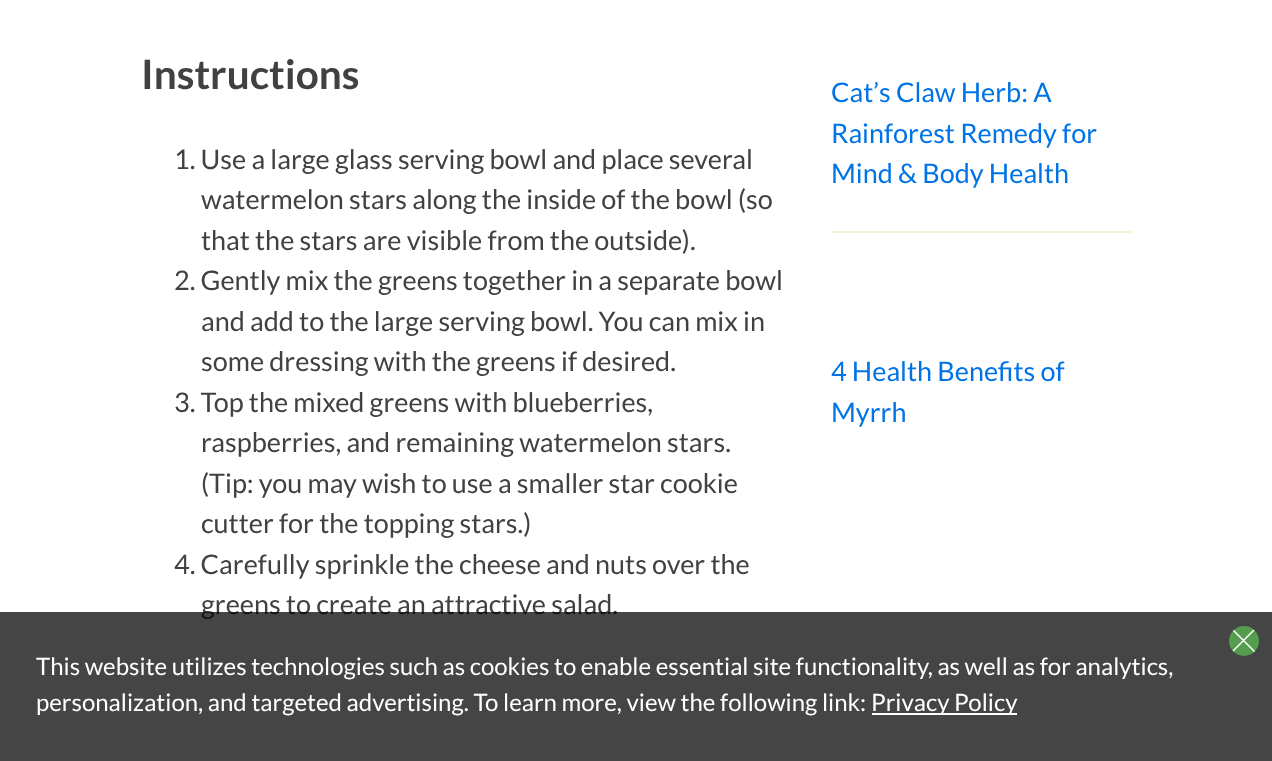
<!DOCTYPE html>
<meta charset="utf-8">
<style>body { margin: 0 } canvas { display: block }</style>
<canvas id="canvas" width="1272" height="761"></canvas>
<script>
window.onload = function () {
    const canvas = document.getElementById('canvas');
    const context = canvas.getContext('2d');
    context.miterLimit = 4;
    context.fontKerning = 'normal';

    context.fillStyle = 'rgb(255, 255, 255)';
    context.fillRect(0, 0, 1272, 761);
    context.fillStyle = 'rgb(237, 245, 216)';
    context.fillRect(831, 231, 300, 2);
    context.font = 'bold 40.5px Lato';
    context.fillStyle = 'rgb(65, 64, 66)';
    context.fillText('Instructions', 141, 89);
    context.font = '27px Lato';
    context.fillText('1. Use a large glass serving bowl and place several', 174, 169);
    context.fillText('watermelon stars along the inside of the bowl (so', 201, 209);
    context.fillText('that the stars are visible from the outside).', 201, 250);
    context.fillText('2. Gently mix the greens together in a separate bowl', 174, 290);
    context.fillText('and add to the large serving bowl. You can mix in', 201, 331);
    context.fillText('some dressing with the greens if desired.', 201, 371);
    context.fillText('3. Top the mixed greens with blueberries,', 174, 412);
    context.fillText('raspberries, and remaining watermelon stars.', 201, 452);
    context.fillText('(Tip: you may wish to use a smaller star cookie', 201, 493);
    context.fillText('cutter for the topping stars.)', 201, 533);
    context.fillText('4. Carefully sprinkle the cheese and nuts over the', 174, 574);
    context.fillText('greens to create an attractive salad.', 201, 614);
    context.fillStyle = 'rgb(0, 115, 229)';
    context.fillText('Cat’s Claw Herb: A', 831, 102);
    context.fillText('Rainforest Remedy for', 831, 143);
    context.fillText('Mind & Body Health', 831, 183);
    context.fillText('4 Health Benefits of', 831, 381);
    context.fillText('Myrrh', 831, 422);
    context.fillStyle = 'rgba(0, 0, 0, 0.73)';
    context.fillRect(0, 612, 1272, 149);
    context.fillStyle = 'rgb(84, 156, 78)';
    context.beginPath();
    context.arc(1244, 641, 15, 0, 2 * Math.PI);
    context.fill();
    context.save();
    context.beginPath();
    context.roundRect(1229, 626, 30, 30, 15);
    context.clip();
    context.beginPath();
    context.moveTo(1231.5, 628.5);
    context.lineTo(1255.5, 652.5);
    context.moveTo(1231.5, 652.5);
    context.lineTo(1255.5, 628.5);
    context.strokeStyle = 'rgb(255, 255, 255)';
    context.lineWidth = 1.5;
    context.stroke();
    context.restore();
    context.font = '24px Lato';
    context.fillStyle = 'rgb(255, 255, 255)';
    context.fillText('This website utilizes technologies such as cookies to enable essential site functionality, as well as for analytics,', 36, 675);
    context.fillText('personalization, and targeted advertising. To learn more, view the following link:', 36, 711);
    context.fillRect(872, 713, 145, 2);
    context.fillText('Privacy Policy', 871, 711);
};
</script>
